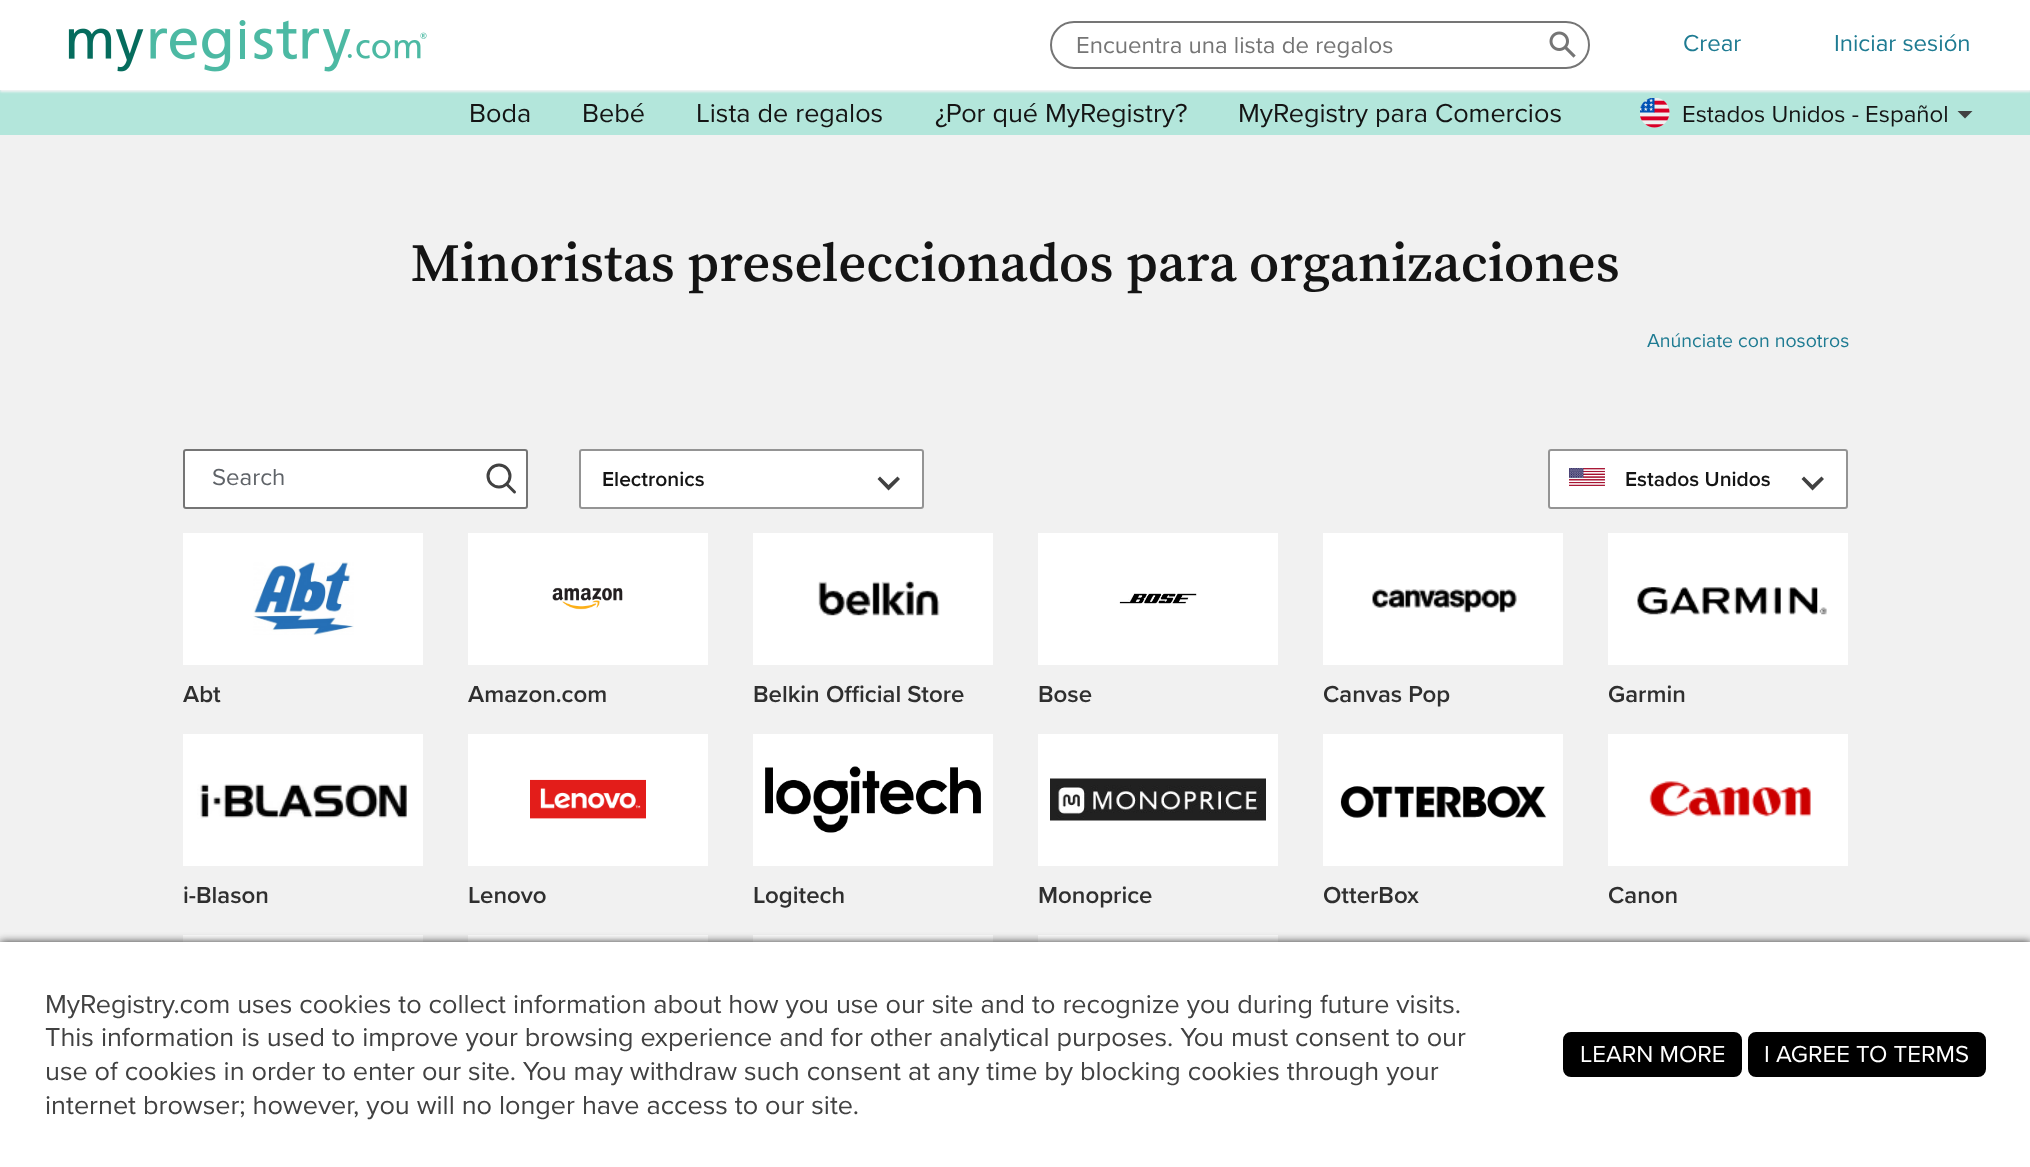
<!DOCTYPE html>
<meta charset="utf-8">
<style>body { margin: 0 } canvas { display: block }</style>
<canvas id="canvas" width="2030" height="1167"></canvas>
<img id="img1" src="images/1.png" hidden>
<img id="img2" src="images/2.png" hidden>
<img id="img3" src="images/3.png" hidden>
<img id="img4" src="images/4.png" hidden>
<img id="img5" src="images/5.png" hidden>
<img id="img6" src="images/6.png" hidden>
<img id="img7" src="images/7.png" hidden>
<img id="img8" src="images/8.png" hidden>
<img id="img9" src="images/9.png" hidden>
<img id="img10" src="images/10.png" hidden>
<img id="img11" src="images/11.png" hidden>
<img id="img12" src="images/12.png" hidden>
<img id="img13" src="images/13.png" hidden>
<img id="img14" src="images/14.png" hidden>
<img id="img15" src="images/15.png" hidden>
<img id="img16" src="images/16.png" hidden>
<script>
window.onload = function () {
    const canvas = document.getElementById('canvas');
    const context = canvas.getContext('2d');
    context.miterLimit = 4;
    context.fontKerning = 'normal';

    context.fillStyle = 'rgb(241, 241, 241)';
    context.fillRect(0, 0, 2030, 1167);
    context.fillStyle = 'rgb(179, 230, 219)';
    context.fillRect(0, 90, 2030, 45);
    context.fillStyle = 'rgb(241, 242, 243)';
    context.filter = 'blur(1px)';
    context.beginPath();
    context.rect(0, 2, 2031, 90);
    context.fill();
    context.filter = 'none';
    context.fillStyle = 'rgb(255, 255, 255)';
    context.fillRect(0, 0, 2030, 90);
    context.drawImage(document.getElementById('img1'), 68, 20, 359, 52);
    context.drawImage(document.getElementById('img2'), 1549, 31, 27, 27);
    context.beginPath();
    context.roundRect(1051, 22, 538, 46, 23);
    context.strokeStyle = 'rgb(117, 117, 117)';
    context.lineWidth = 2;
    context.stroke();
    context.drawImage(document.getElementById('img3'), 1640, 98, 30, 30);
    context.fillStyle = 'rgb(65, 65, 65)';
    context.beginPath();
    context.moveTo(1957.5, 111);
    context.lineTo(1972.5, 111);
    context.lineTo(1965, 118.5);
    context.closePath();
    context.fill();
    context.fillStyle = 'rgb(255, 255, 255)';
    context.beginPath();
    context.roundRect(183, 449, 345, 60, 3);
    context.fill();
    context.beginPath();
    context.arc(499, 476, 11, 0, 2 * Math.PI);
    context.strokeStyle = 'rgb(65, 65, 65)';
    context.lineWidth = 3;
    context.stroke();
    context.beginPath();
    context.moveTo(514.5, 492);
    context.lineTo(506.5, 484);
    context.lineCap = 'round';
    context.lineJoin = 'round';
    context.stroke();
    context.beginPath();
    context.roundRect(184, 450, 343, 58, 2);
    context.strokeStyle = 'rgb(117, 117, 117)';
    context.lineWidth = 2;
    context.lineJoin = 'miter';
    context.stroke();
    context.beginPath();
    context.roundRect(579, 449, 345, 60, 3);
    context.fill();
    context.fillStyle = 'rgb(65, 65, 65)';
    context.beginPath();
    context.moveTo(880, 476.5);
    context.lineTo(888.5, 485);
    context.lineTo(897.5, 476.5);
    context.lineTo(900, 479);
    context.lineTo(888.5, 490.5);
    context.lineTo(877.5, 479);
    context.closePath();
    context.fill();
    context.beginPath();
    context.roundRect(580, 450, 343, 58, 2);
    context.strokeStyle = 'rgb(148, 148, 148)';
    context.stroke();
    context.fillStyle = 'rgb(255, 255, 255)';
    context.beginPath();
    context.roundRect(1548, 449, 300, 60, 3);
    context.fill();
    context.fillStyle = 'rgb(65, 65, 65)';
    context.beginPath();
    context.moveTo(1804, 476.5);
    context.lineTo(1812.5, 485);
    context.lineTo(1821.5, 476.5);
    context.lineTo(1824, 479);
    context.lineTo(1812.5, 490.5);
    context.lineTo(1801.5, 479);
    context.closePath();
    context.fill();
    context.beginPath();
    context.roundRect(1549, 450, 298, 58, 2);
    context.stroke();
    context.drawImage(document.getElementById('img4'), 1569, 468, 36, 18);
    context.fillStyle = 'rgb(255, 255, 255)';
    context.fillRect(183, 533, 240, 132);
    context.drawImage(document.getElementById('img5'), 253, 562, 101, 73);
    context.fillRect(468, 533, 240, 132);
    context.drawImage(document.getElementById('img6'), 552, 587, 71, 23);
    context.fillRect(753, 533, 240, 132);
    context.drawImage(document.getElementById('img7'), 818, 580, 122, 36);
    context.fillRect(1038, 533, 240, 132);
    context.drawImage(document.getElementById('img8'), 1119, 593, 78, 11);
    context.fillRect(1323, 533, 240, 132);
    context.drawImage(document.getElementById('img9'), 1372, 589, 145, 24);
    context.fillRect(1608, 533, 240, 132);
    context.drawImage(document.getElementById('img10'), 1637, 587, 190, 28);
    context.fillRect(183, 734, 240, 132);
    context.drawImage(document.getElementById('img11'), 197, 784, 210, 35);
    context.fillRect(468, 734, 240, 132);
    context.drawImage(document.getElementById('img12'), 530, 779, 116, 40);
    context.fillRect(753, 734, 240, 132);
    context.drawImage(document.getElementById('img13'), 765, 766, 216, 67);
    context.fillRect(1038, 734, 240, 132);
    context.drawImage(document.getElementById('img14'), 1050, 778, 216, 43);
    context.fillRect(1323, 734, 240, 132);
    context.drawImage(document.getElementById('img15'), 1340, 786, 207, 32);
    context.fillRect(1608, 734, 240, 132);
    context.drawImage(document.getElementById('img16'), 1649, 781, 162, 36);
    context.fillRect(183, 935, 240, 7);
    context.fillRect(468, 935, 240, 7);
    context.fillRect(753, 935, 240, 7);
    context.fillRect(1038, 935, 240, 7);
    context.fillStyle = 'rgb(46, 46, 46)';
    context.filter = 'blur(4px)';
    context.beginPath();
    context.rect(0, 942, 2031, 225);
    context.fill();
    context.filter = 'none';
    context.fillStyle = 'rgb(255, 255, 255)';
    context.fillRect(0, 942, 2030, 225);
    context.fillStyle = 'rgb(0, 0, 0)';
    context.beginPath();
    context.roundRect(1564, 1033, 177, 43, 7);
    context.fill();
    context.strokeStyle = 'rgb(0, 0, 0)';
    context.stroke();
    context.beginPath();
    context.roundRect(1749, 1033, 236, 43, 7);
    context.fill();
    context.stroke();
    context.font = '24px Proxima Nova';
    context.fillStyle = 'rgb(117, 117, 117)';
    context.fillText('Encuentra una lista de regalos', 1076, 53);
    context.fillStyle = 'rgb(30, 123, 146)';
    context.fillText('Crear', 1683, 51);
    context.fillText('Iniciar sesión', 1834, 51);
    context.font = '27px Proxima Nova';
    context.fillStyle = 'rgb(20, 20, 20)';
    context.fillText('Boda', 469, 122);
    context.fillText('Bebé', 582, 122);
    context.fillText('Lista de regalos', 696, 122);
    context.fillText('¿Por qué MyRegistry?', 935, 122);
    context.fillText('MyRegistry para Comercios', 1238, 122);
    context.font = '24px Proxima Nova';
    context.fillText('Estados Unidos - Español', 1682, 122);
    context.font = '600 54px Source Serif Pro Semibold';
    context.fillText('Minoristas preseleccionados para organizaciones', 411, 281);
    context.font = '19.5px Proxima Nova';
    context.fillStyle = 'rgb(30, 123, 146)';
    context.fillText('Anúnciate con nosotros', 1647, 347);
    context.font = '24px Proxima Nova';
    context.fillStyle = 'rgb(95, 99, 104)';
    context.fillText('Search', 212, 485);
    context.font = '600 21px Proxima Nova';
    context.fillStyle = 'rgb(20, 20, 20)';
    context.fillText('Electronics', 602, 486);
    context.fillText('Estados Unidos', 1625, 486);
    context.font = '600 24px Proxima Nova';
    context.fillStyle = 'rgb(47, 47, 47)';
    context.fillText('Abt', 183, 702);
    context.fillText('Amazon.com', 468, 702);
    context.fillText('Belkin Official Store', 753, 702);
    context.fillText('Bose', 1038, 702);
    context.fillText('Canvas Pop', 1323, 702);
    context.fillText('Garmin', 1608, 702);
    context.fillText('i-Blason', 183, 903);
    context.fillText('Lenovo', 468, 903);
    context.fillText('Logitech', 753, 903);
    context.fillText('Monoprice', 1038, 903);
    context.fillText('OtterBox', 1323, 903);
    context.fillText('Canon', 1608, 903);
    context.font = '27px Proxima Nova';
    context.fillStyle = 'rgb(65, 65, 65)';
    context.fillText('MyRegistry.com uses cookies to collect information about how you use our site and to recognize you during future visits.', 45, 1013);
    context.fillText('This information is used to improve your browsing experience and for other analytical purposes. You must consent to our', 45, 1046);
    context.fillText('use of cookies in order to enter our site. You may withdraw such consent at any time by blocking cookies through your', 45, 1080);
    context.fillText('internet browser; however, you will no longer have access to our site.', 45, 1114);
    context.font = '24px Proxima Nova';
    context.fillStyle = 'rgb(255, 255, 255)';
    context.fillText('LEARN MORE', 1580, 1062);
    context.fillText('I AGREE TO TERMS', 1764, 1062);
};
</script>
